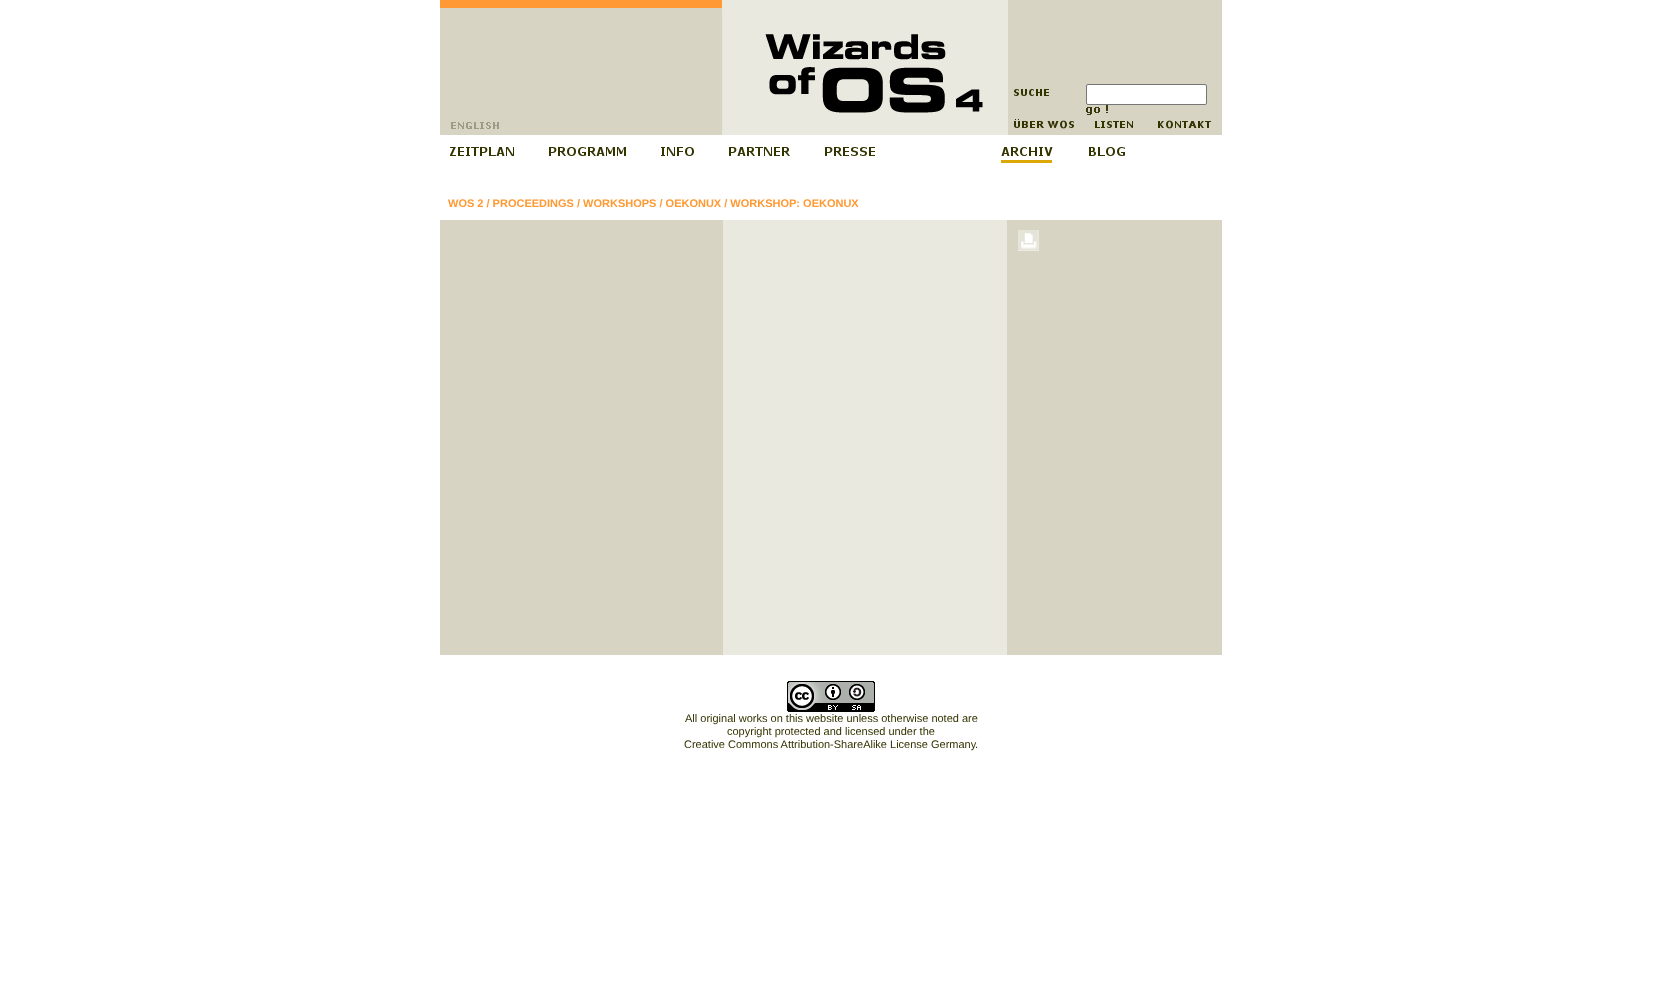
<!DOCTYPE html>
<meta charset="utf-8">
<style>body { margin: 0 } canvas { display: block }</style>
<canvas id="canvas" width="1662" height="1005"></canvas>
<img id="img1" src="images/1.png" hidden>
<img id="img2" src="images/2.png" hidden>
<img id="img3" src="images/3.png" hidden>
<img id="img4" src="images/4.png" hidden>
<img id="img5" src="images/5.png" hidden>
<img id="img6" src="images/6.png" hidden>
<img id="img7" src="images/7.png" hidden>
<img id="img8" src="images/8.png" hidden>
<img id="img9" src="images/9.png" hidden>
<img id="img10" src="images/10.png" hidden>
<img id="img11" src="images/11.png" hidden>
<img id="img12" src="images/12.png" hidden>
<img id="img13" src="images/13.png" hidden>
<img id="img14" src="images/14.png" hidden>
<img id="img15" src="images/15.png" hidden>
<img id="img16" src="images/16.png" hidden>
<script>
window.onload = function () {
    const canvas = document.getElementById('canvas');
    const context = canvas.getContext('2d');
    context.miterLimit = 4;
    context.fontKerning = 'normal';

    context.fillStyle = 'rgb(255, 255, 255)';
    context.fillRect(0, 0, 1662, 1005);
    context.fillStyle = 'rgb(255, 153, 51)';
    context.fillRect(440, 0, 282, 8);
    context.fillStyle = 'rgb(234, 233, 224)';
    context.fillRect(722, 0, 286, 135);
    context.drawImage(document.getElementById('img1'), 722, 13, 261, 117);
    context.fillStyle = 'rgb(215, 212, 195)';
    context.fillRect(1008, 0, 214, 84);
    context.fillRect(440, 8, 282, 127);
    context.fillRect(1008, 84, 214, 51);
    context.drawImage(document.getElementById('img2'), 1014, 89, 35, 7);
    context.fillStyle = 'rgb(255, 255, 255)';
    context.beginPath();
    context.roundRect(1086.5, 84.5, 120, 20, 1.5);
    context.fill();
    context.strokeStyle = 'rgb(118, 118, 118)';
    context.stroke();
    context.drawImage(document.getElementById('img3'), 1086, 105, 22, 10);
    context.drawImage(document.getElementById('img4'), 451, 122, 48, 7);
    context.drawImage(document.getElementById('img5'), 1014, 119, 60, 10);
    context.drawImage(document.getElementById('img6'), 1095, 121, 38, 7);
    context.drawImage(document.getElementById('img7'), 1158, 120, 53, 9);
    context.drawImage(document.getElementById('img8'), 450, 147, 64, 9);
    context.drawImage(document.getElementById('img9'), 549, 147, 77, 9);
    context.drawImage(document.getElementById('img10'), 661, 147, 33, 9);
    context.drawImage(document.getElementById('img11'), 729, 147, 61, 9);
    context.drawImage(document.getElementById('img12'), 825, 147, 50, 9);
    context.drawImage(document.getElementById('img13'), 1001, 147, 52, 16);
    context.drawImage(document.getElementById('img14'), 1089, 147, 36, 9);
    context.fillStyle = 'rgb(215, 212, 195)';
    context.fillRect(440, 220, 283, 10);
    context.fillStyle = 'rgb(234, 233, 224)';
    context.fillRect(723, 220, 1, 435);
    context.fillRect(724, 220, 282, 10);
    context.fillRect(1006, 220, 1, 435);
    context.fillStyle = 'rgb(215, 212, 195)';
    context.fillRect(1007, 220, 215, 10);
    context.fillRect(440, 230, 283, 425);
    context.fillStyle = 'rgb(234, 233, 224)';
    context.fillRect(724, 230, 282, 425);
    context.fillStyle = 'rgb(215, 212, 195)';
    context.fillRect(1007, 230, 215, 425);
    context.drawImage(document.getElementById('img15'), 1018, 230, 21, 21);
    context.drawImage(document.getElementById('img16'), 787, 681, 88, 31);
    context.font = 'bold 11px Liberation Sans';
    context.fillStyle = 'rgb(255, 153, 51)';
    context.fillText('WOS 2 / PROCEEDINGS / WORKSHOPS / OEKONUX / WORKSHOP: OEKONUX', 448, 207);
    context.font = '11px Liberation Sans';
    context.fillStyle = 'rgb(51, 51, 0)';
    context.fillText('All original works on this website unless otherwise noted are', 685, 722);
    context.fillText('copyright protected and licensed under the', 727, 735);
    context.fillText('Creative Commons Attribution-ShareAlike License Germany', 684, 748);
    context.fillText('.', 975, 748);
};
</script>
